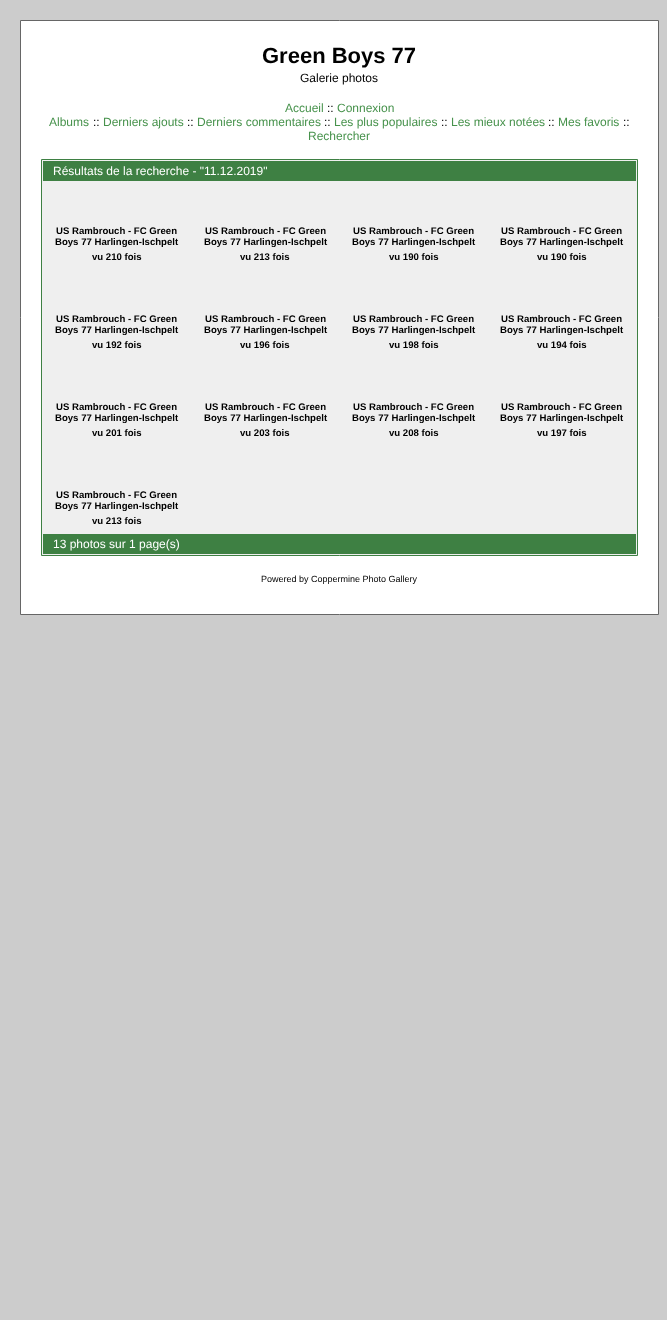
<!DOCTYPE html>
<meta charset="utf-8">
<style>body { margin: 0 } canvas { display: block }</style>
<canvas id="canvas" width="667" height="1320"></canvas>
<script>
window.onload = function () {
    const canvas = document.getElementById('canvas');
    const context = canvas.getContext('2d');
    context.miterLimit = 4;
    context.fontKerning = 'normal';

    context.fillStyle = 'rgb(204, 204, 204)';
    context.fillRect(0, 0, 667, 1320);
    context.fillStyle = 'rgb(255, 255, 255)';
    context.beginPath();
    context.rect(20.5, 20.5, 638, 594);
    context.fill();
    context.strokeStyle = 'rgb(102, 102, 102)';
    context.stroke();
    context.fillStyle = 'rgb(239, 239, 239)';
    context.beginPath();
    context.rect(41.5, 159.5, 596, 396);
    context.fill();
    context.strokeStyle = 'rgb(62, 128, 67)';
    context.stroke();
    context.fillStyle = 'rgb(62, 128, 67)';
    context.fillRect(43, 161, 593, 20);
    context.fillRect(43, 534, 593, 20);
    context.font = 'bold 22px Liberation Sans';
    context.fillStyle = 'rgb(0, 0, 0)';
    context.fillText('Green Boys 77', 262, 63);
    context.font = '12px Liberation Sans';
    context.fillText('Galerie photos', 300, 82);
    context.fillStyle = 'rgb(71, 146, 76)';
    context.fillText('Accueil', 285, 112);
    context.fillStyle = 'rgb(0, 0, 0)';
    context.fillText('::', 327, 112);
    context.fillStyle = 'rgb(71, 146, 76)';
    context.fillText('Connexion', 337, 112);
    context.fillText('Albums', 49, 126);
    context.fillStyle = 'rgb(0, 0, 0)';
    context.fillText('::', 93, 126);
    context.fillStyle = 'rgb(71, 146, 76)';
    context.fillText('Derniers ajouts', 103, 126);
    context.fillStyle = 'rgb(0, 0, 0)';
    context.fillText('::', 187, 126);
    context.fillStyle = 'rgb(71, 146, 76)';
    context.fillText('Derniers commentaires', 197, 126);
    context.fillStyle = 'rgb(0, 0, 0)';
    context.fillText('::', 324, 126);
    context.fillStyle = 'rgb(71, 146, 76)';
    context.fillText('Les plus populaires', 334, 126);
    context.fillStyle = 'rgb(0, 0, 0)';
    context.fillText('::', 441, 126);
    context.fillStyle = 'rgb(71, 146, 76)';
    context.fillText('Les mieux notées', 451, 126);
    context.fillStyle = 'rgb(0, 0, 0)';
    context.fillText('::', 548, 126);
    context.fillStyle = 'rgb(71, 146, 76)';
    context.fillText('Mes favoris', 558, 126);
    context.fillStyle = 'rgb(0, 0, 0)';
    context.fillText('::', 623, 126);
    context.fillStyle = 'rgb(71, 146, 76)';
    context.fillText('Rechercher', 308, 140);
    context.fillStyle = 'rgb(255, 255, 255)';
    context.fillText('Résultats de la recherche - "11.12.2019"', 53, 175);
    context.font = 'bold 9.6px Liberation Sans';
    context.fillStyle = 'rgb(0, 0, 0)';
    context.fillText('US Rambrouch - FC Green', 56, 234);
    context.fillText('Boys 77 Harlingen-Ischpelt', 55, 245);
    context.fillText('vu 210 fois', 92, 260);
    context.fillText('US Rambrouch - FC Green', 205, 234);
    context.fillText('Boys 77 Harlingen-Ischpelt', 204, 245);
    context.fillText('vu 213 fois', 240, 260);
    context.fillText('US Rambrouch - FC Green', 353, 234);
    context.fillText('Boys 77 Harlingen-Ischpelt', 352, 245);
    context.fillText('vu 190 fois', 389, 260);
    context.fillText('US Rambrouch - FC Green', 501, 234);
    context.fillText('Boys 77 Harlingen-Ischpelt', 500, 245);
    context.fillText('vu 190 fois', 537, 260);
    context.fillText('US Rambrouch - FC Green', 56, 322);
    context.fillText('Boys 77 Harlingen-Ischpelt', 55, 333);
    context.fillText('vu 192 fois', 92, 348);
    context.fillText('US Rambrouch - FC Green', 205, 322);
    context.fillText('Boys 77 Harlingen-Ischpelt', 204, 333);
    context.fillText('vu 196 fois', 240, 348);
    context.fillText('US Rambrouch - FC Green', 353, 322);
    context.fillText('Boys 77 Harlingen-Ischpelt', 352, 333);
    context.fillText('vu 198 fois', 389, 348);
    context.fillText('US Rambrouch - FC Green', 501, 322);
    context.fillText('Boys 77 Harlingen-Ischpelt', 500, 333);
    context.fillText('vu 194 fois', 537, 348);
    context.fillText('US Rambrouch - FC Green', 56, 410);
    context.fillText('Boys 77 Harlingen-Ischpelt', 55, 421);
    context.fillText('vu 201 fois', 92, 436);
    context.fillText('US Rambrouch - FC Green', 205, 410);
    context.fillText('Boys 77 Harlingen-Ischpelt', 204, 421);
    context.fillText('vu 203 fois', 240, 436);
    context.fillText('US Rambrouch - FC Green', 353, 410);
    context.fillText('Boys 77 Harlingen-Ischpelt', 352, 421);
    context.fillText('vu 208 fois', 389, 436);
    context.fillText('US Rambrouch - FC Green', 501, 410);
    context.fillText('Boys 77 Harlingen-Ischpelt', 500, 421);
    context.fillText('vu 197 fois', 537, 436);
    context.fillText('US Rambrouch - FC Green', 56, 498);
    context.fillText('Boys 77 Harlingen-Ischpelt', 55, 509);
    context.fillText('vu 213 fois', 92, 524);
    context.font = '12px Liberation Sans';
    context.fillStyle = 'rgb(255, 255, 255)';
    context.fillText('13 photos sur 1 page(s)', 53, 548);
    context.font = '9px Liberation Sans';
    context.fillStyle = 'rgb(0, 0, 0)';
    context.fillText('Powered by Coppermine Photo Gallery', 261, 582);
};
</script>
